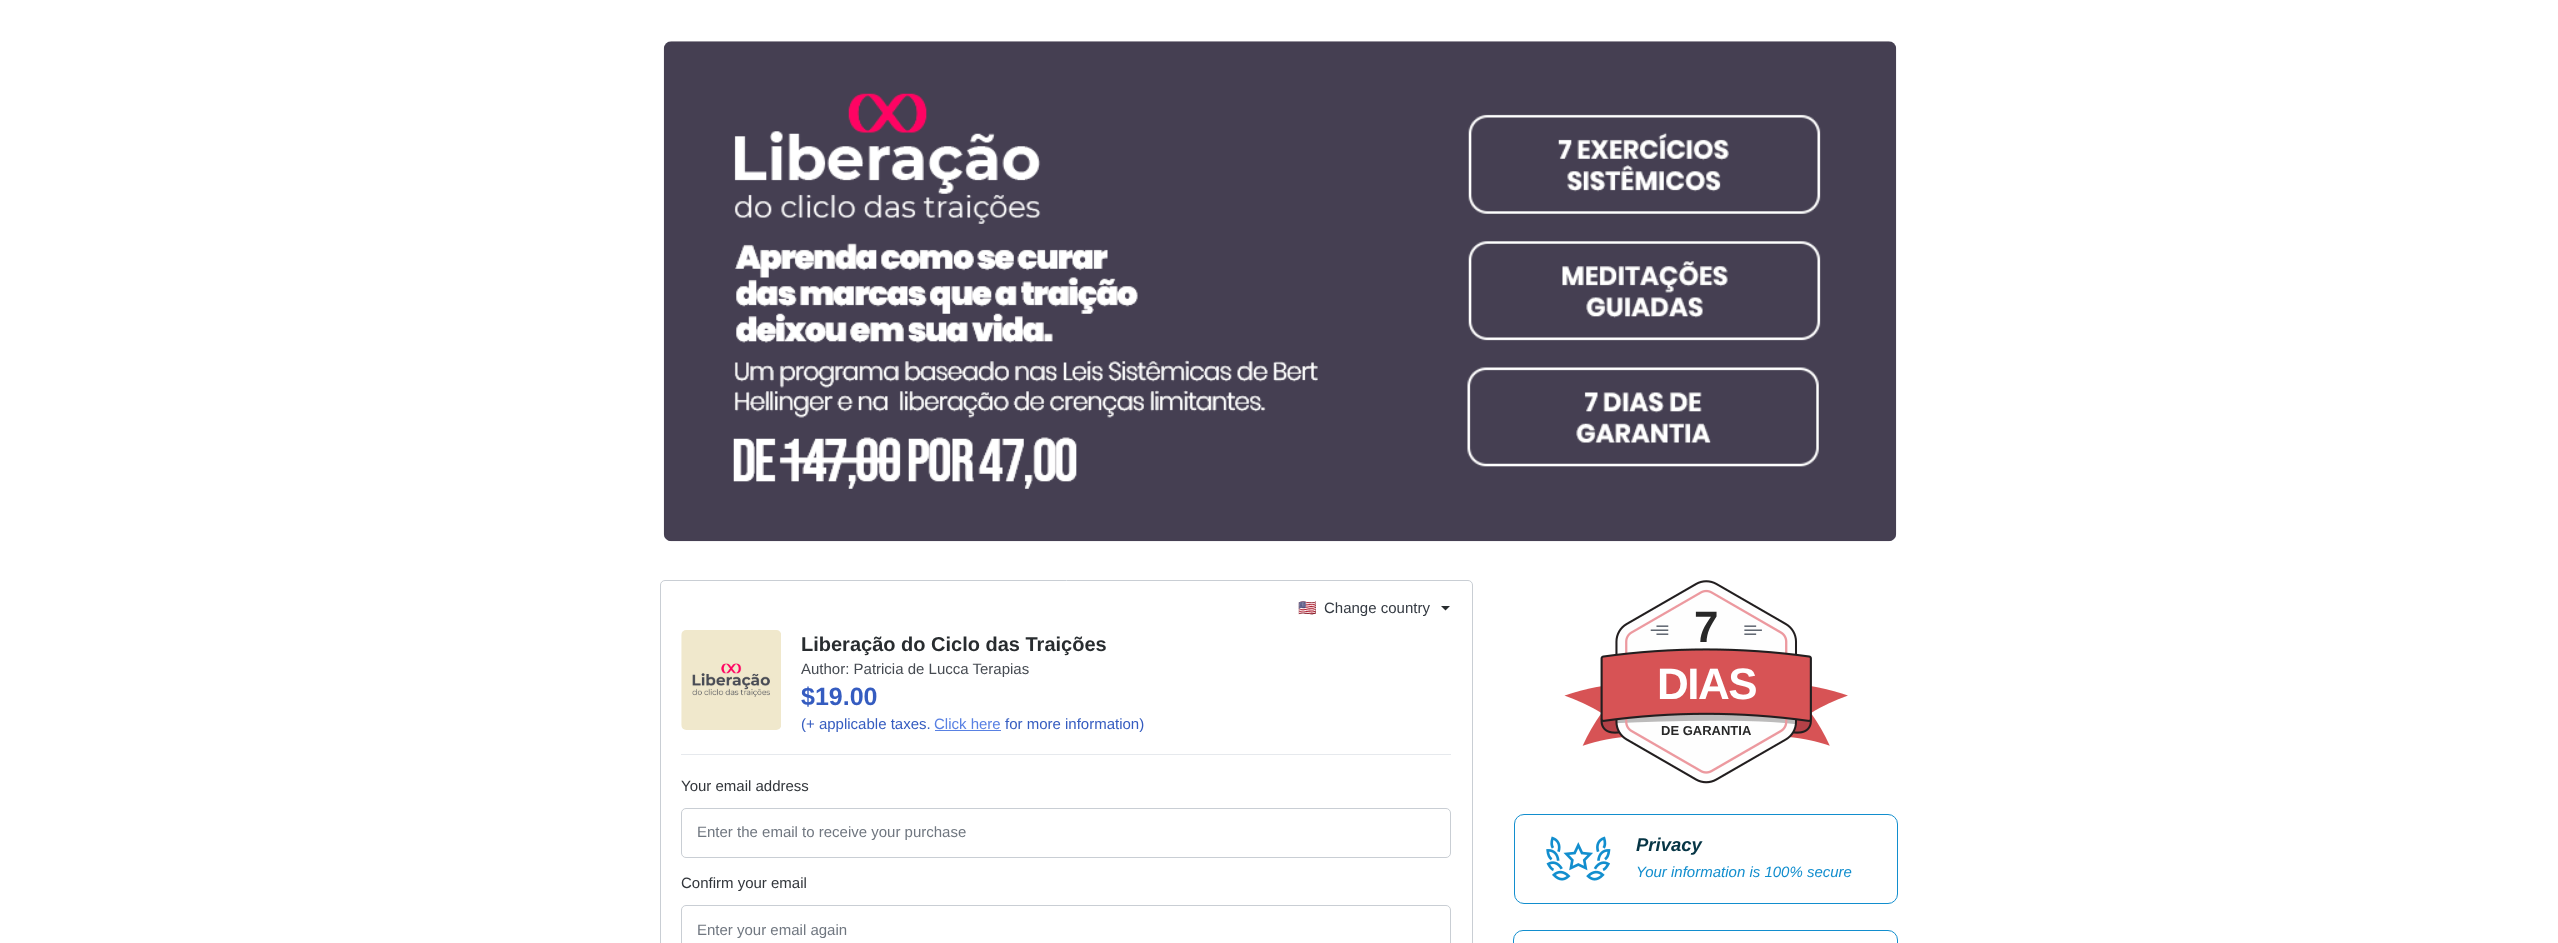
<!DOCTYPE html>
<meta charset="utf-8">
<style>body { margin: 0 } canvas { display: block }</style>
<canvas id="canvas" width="2558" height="943"></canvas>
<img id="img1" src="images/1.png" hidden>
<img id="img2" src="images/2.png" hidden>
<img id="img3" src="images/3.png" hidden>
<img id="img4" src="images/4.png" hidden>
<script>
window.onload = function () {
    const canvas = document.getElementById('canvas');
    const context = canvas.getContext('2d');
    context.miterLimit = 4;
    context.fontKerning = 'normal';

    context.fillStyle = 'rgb(255, 255, 255)';
    context.fillRect(0, 0, 2558, 943);
    context.drawImage(document.getElementById('img1'), 663, 41, 1234, 501);
    context.beginPath();
    context.roundRect(660.5, 580.5, 812, 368, 4.5);
    context.strokeStyle = 'rgb(201, 206, 212)';
    context.stroke();
    context.fillStyle = 'rgb(40, 44, 47)';
    context.beginPath();
    context.moveTo(1441, 606);
    context.lineTo(1445.5, 610.5);
    context.lineTo(1450, 606);
    context.closePath();
    context.fill('evenodd');
    context.drawImage(document.getElementById('img2'), 681, 630, 100, 100);
    context.fillStyle = 'rgb(89, 129, 227)';
    context.fillRect(935, 730, 66, 1);
    context.fillStyle = 'rgb(230, 233, 237)';
    context.fillRect(681, 754, 770, 1);
    context.beginPath();
    context.roundRect(681.5, 808.5, 769, 49, 4.5);
    context.stroke();
    context.beginPath();
    context.roundRect(681.5, 905.5, 769, 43, 4.5);
    context.stroke();
    context.drawImage(document.getElementById('img3'), 1564, 580, 284, 204);
    context.beginPath();
    context.roundRect(1514.5, 814.5, 383, 89, 9.5);
    context.strokeStyle = 'rgb(18, 142, 206)';
    context.stroke();
    context.drawImage(document.getElementById('img4'), 1546, 836, 65, 45);
    context.beginPath();
    context.roundRect(1513.5, 930.5, 384, 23, 9.5);
    context.stroke();
    context.font = '15px Noto Color Emoji';
    context.fillStyle = 'rgb(52, 58, 66)';
    context.fillText('🇺🇸', 1298, 613);
    context.font = '15px Liberation Sans';
    context.fillText('Change country', 1324, 613);
    context.font = 'bold 20px Liberation Sans';
    context.fillStyle = 'rgb(40, 44, 47)';
    context.fillText('Liberação do Ciclo das Traições', 801, 651);
    context.font = '15px Liberation Sans';
    context.fillStyle = 'rgb(70, 75, 82)';
    context.fillText('Author: Patricia de Lucca Terapias', 801, 674);
    context.font = 'bold 25px Liberation Sans';
    context.fillStyle = 'rgb(53, 92, 192)';
    context.fillText('$19.00', 801, 705);
    context.font = '15px Liberation Sans';
    context.fillText('(+ applicable taxes.', 801, 729);
    context.fillStyle = 'rgb(89, 129, 227)';
    context.fillText('Click here', 934, 729);
    context.fillStyle = 'rgb(53, 92, 192)';
    context.fillText('for more information)', 1005, 729);
    context.fillStyle = 'rgb(50, 54, 59)';
    context.fillText('Your email address', 681, 791);
    context.fillStyle = 'rgb(112, 119, 128)';
    context.fillText('Enter the email to receive your purchase', 697, 837);
    context.fillStyle = 'rgb(50, 54, 59)';
    context.fillText('Confirm your email', 681, 888);
    context.fillStyle = 'rgb(112, 119, 128)';
    context.fillText('Enter your email again', 697, 935);
    context.font = 'bold 44px Liberation Sans';
    context.fillStyle = 'rgb(40, 40, 40)';
    context.fillText('7', 1694, 642);
    context.letterSpacing = '-1.5px';
    context.fillStyle = 'rgb(255, 255, 255)';
    context.fillText('DIAS', 1657, 699);
    context.letterSpacing = '0px';
    context.font = 'bold 13px Liberation Sans';
    context.fillStyle = 'rgb(40, 40, 40)';
    context.fillText('DE GARANTIA', 1661, 735);
    context.font = 'italic bold 18.5px Liberation Sans';
    context.fillStyle = 'rgb(6, 53, 69)';
    context.fillText('Privacy', 1636, 851);
    context.font = 'italic 15px Liberation Sans';
    context.fillStyle = 'rgb(18, 142, 206)';
    context.fillText('Your information is 100% secure', 1636, 877);
};
</script>
